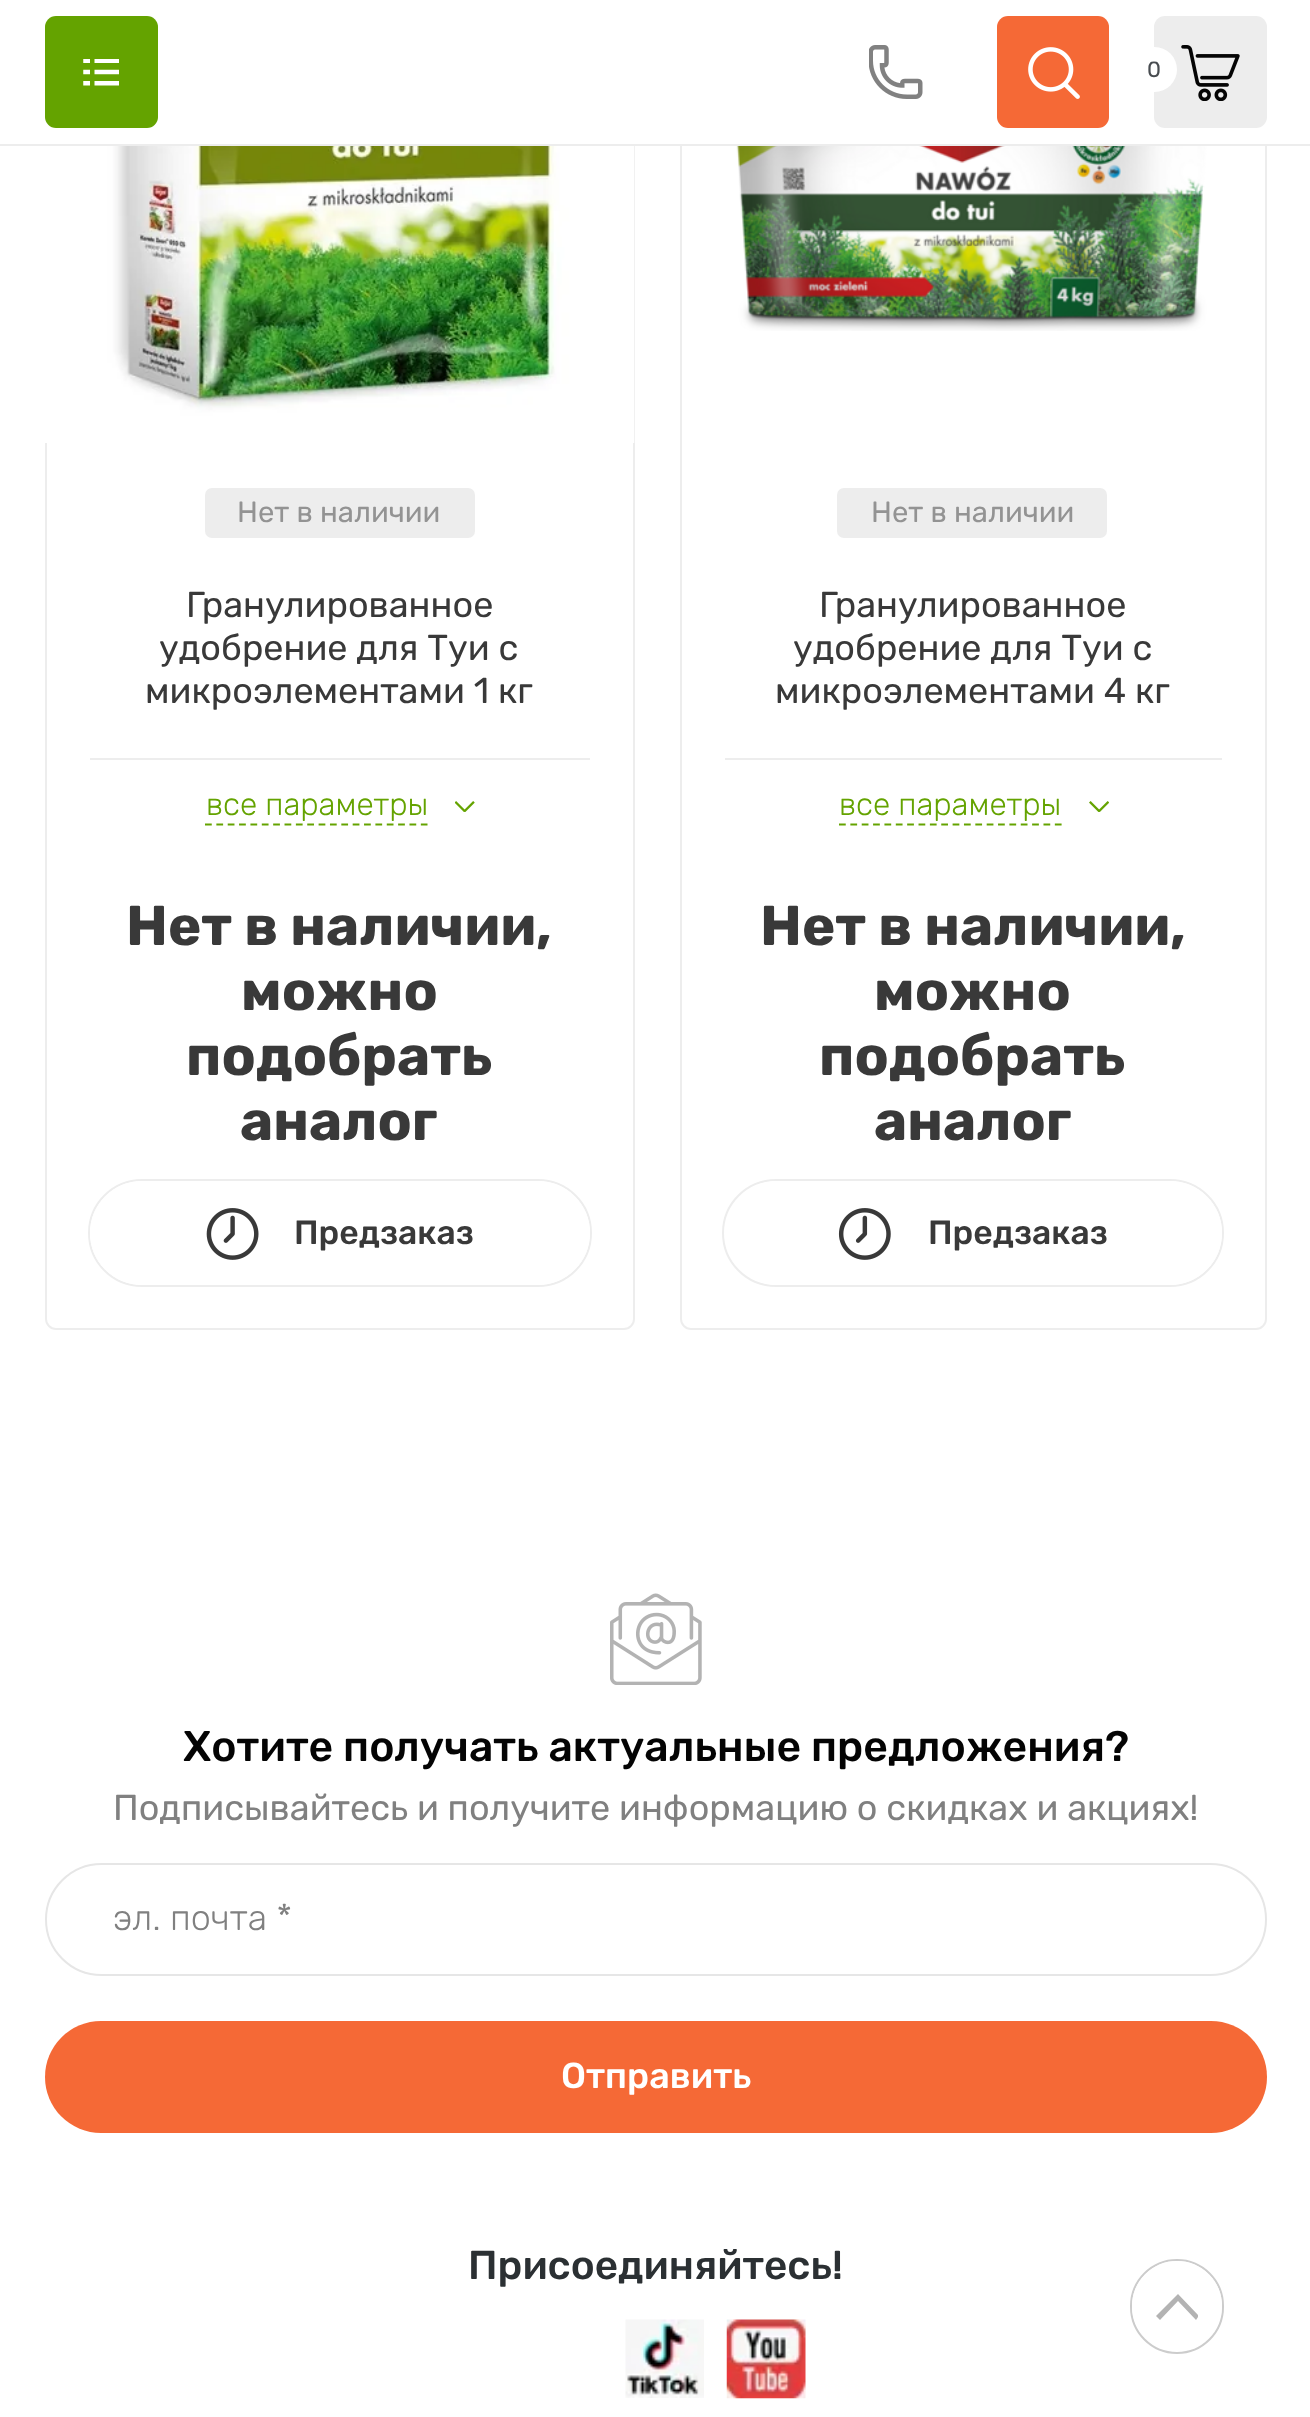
<!DOCTYPE html>
<meta charset="utf-8">
<style>body { margin: 0 } canvas { display: block }</style>
<canvas id="canvas" width="1310" height="2417"></canvas>
<img id="img1" src="images/1.png" hidden>
<img id="img2" src="images/2.png" hidden>
<img id="img3" src="images/3.png" hidden>
<img id="img4" src="images/4.png" hidden>
<img id="img5" src="images/5.png" hidden>
<img id="img6" src="images/6.png" hidden>
<img id="img7" src="images/7.png" hidden>
<img id="img8" src="images/8.png" hidden>
<img id="img9" src="images/9.png" hidden>
<img id="img10" src="images/10.png" hidden>
<img id="img11" src="images/11.png" hidden>
<img id="img12" src="images/12.png" hidden>
<img id="img13" src="images/13.png" hidden>
<script>
window.onload = function () {
    const canvas = document.getElementById('canvas');
    const context = canvas.getContext('2d');
    context.miterLimit = 4;
    context.fontKerning = 'normal';

    context.fillStyle = 'rgb(255, 255, 255)';
    context.fillRect(0, 0, 1310, 2417);
    context.beginPath();
    context.roundRect(46, -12, 588, 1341, 10);
    context.strokeStyle = 'rgba(0, 0, 0, 0.07)';
    context.lineWidth = 2;
    context.stroke();
    context.beginPath();
    context.roundRect(681, -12, 585, 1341, 10);
    context.stroke();
    context.fillRect(45, 0, 1222, 144);
    context.fillStyle = 'rgb(237, 237, 237)';
    context.fillRect(0, 144, 1310, 2);
    context.fillStyle = 'rgb(100, 163, 0)';
    context.beginPath();
    context.roundRect(45, 16, 113, 112, 11);
    context.fill();
    context.drawImage(document.getElementById('img1'), 83, 59, 36, 27);
    context.drawImage(document.getElementById('img2'), 869, 45, 54, 54);
    context.fillStyle = 'rgb(245, 105, 54)';
    context.beginPath();
    context.roundRect(997, 16, 112, 112, 11);
    context.fill();
    context.drawImage(document.getElementById('img3'), 1028, 47, 52, 52);
    context.fillStyle = 'rgb(237, 237, 237)';
    context.beginPath();
    context.roundRect(1154, 16, 113, 112, 11);
    context.fill();
    context.fillStyle = 'rgb(255, 255, 255)';
    context.beginPath();
    context.arc(1154.5, 69.5, 22.5, 0, 2 * Math.PI);
    context.fill();
    context.drawImage(document.getElementById('img4'), 1181, 45, 59, 56);
    context.drawImage(document.getElementById('img5'), 45, 146, 590, 297);
    context.fillStyle = 'rgb(237, 237, 237)';
    context.fillRect(90, 758, 500, 2);
    context.beginPath();
    context.roundRect(205, 488, 270, 50, 7);
    context.fill();
    context.beginPath();
    context.moveTo(205, 824.5);
    context.lineTo(427.5, 824.5);
    context.strokeStyle = 'rgb(100, 163, 0)';
    context.lineWidth = 2.2;
    context.setLineDash([6.75, 4.61]);
    context.stroke();
    context.drawImage(document.getElementById('img6'), 455, 801, 20, 11);
    context.beginPath();
    context.roundRect(89, 1180, 502, 106, 53);
    context.strokeStyle = 'rgb(237, 237, 237)';
    context.lineWidth = 2;
    context.setLineDash([]);
    context.stroke();
    context.fillStyle = 'rgb(255, 255, 255)';
    context.beginPath();
    context.roundRect(90, 1181, 500, 104, 52);
    context.fill();
    context.drawImage(document.getElementById('img7'), 206, 1208, 53, 52);
    context.drawImage(document.getElementById('img8'), 736, 146, 471, 185);
    context.fillStyle = 'rgb(237, 237, 237)';
    context.fillRect(725, 758, 497, 2);
    context.beginPath();
    context.roundRect(837, 488, 270, 50, 7);
    context.fill();
    context.beginPath();
    context.moveTo(839, 824.5);
    context.lineTo(1062, 824.5);
    context.strokeStyle = 'rgb(100, 163, 0)';
    context.lineWidth = 2.2;
    context.setLineDash([6.75, 4.61]);
    context.stroke();
    context.drawImage(document.getElementById('img9'), 1089, 801, 20, 11);
    context.beginPath();
    context.roundRect(723, 1180, 500, 106, 53);
    context.strokeStyle = 'rgb(237, 237, 237)';
    context.lineWidth = 2;
    context.setLineDash([]);
    context.stroke();
    context.fillStyle = 'rgb(255, 255, 255)';
    context.beginPath();
    context.roundRect(725, 1181, 497, 104, 52);
    context.fill();
    context.drawImage(document.getElementById('img10'), 838, 1208, 53, 52);
    context.drawImage(document.getElementById('img11'), 610, 1593, 92, 92);
    context.beginPath();
    context.roundRect(46, 1864, 1220, 111, 55.5);
    context.strokeStyle = 'rgb(230, 230, 230)';
    context.stroke();
    context.fillStyle = 'rgb(245, 105, 54)';
    context.beginPath();
    context.roundRect(45, 2021, 1222, 112, 56);
    context.fill();
    context.drawImage(document.getElementById('img12'), 625, 2319, 79, 79);
    context.drawImage(document.getElementById('img13'), 726, 2319, 80, 80);
    context.beginPath();
    context.roundRect(1131, 2260, 92, 93, 46);
    context.strokeStyle = 'rgb(204, 204, 204)';
    context.stroke();
    context.fillStyle = 'rgb(255, 255, 255)';
    context.beginPath();
    context.arc(1177, 2306, 45, 0, 2 * Math.PI);
    context.fill();
    context.fillStyle = 'rgb(179, 179, 179)';
    context.beginPath();
    context.moveTo(1156, 2316);
    context.lineTo(1178, 2294);
    context.lineTo(1198, 2315);
    context.lineTo(1198, 2317);
    context.lineTo(1196, 2320);
    context.lineTo(1178, 2301);
    context.lineTo(1160, 2320);
    context.closePath();
    context.fill();
    context.font = '22px Rubik';
    context.fillStyle = 'rgb(72, 76, 80)';
    context.fillText('0', 1147, 77);
    context.font = '29.25px Rubik';
    context.fillStyle = 'rgb(147, 147, 147)';
    context.fillText('Нет в наличии', 237, 522);
    context.font = '36px Rubik';
    context.fillStyle = 'rgb(57, 57, 57)';
    context.fillText('Гранулированное', 186, 617);
    context.fillText('удобрение для Туи с', 159, 660);
    context.fillText('микроэлементами 1 кг', 145, 703);
    context.font = '300 31.5px Rubik';
    context.fillStyle = 'rgb(100, 163, 0)';
    context.fillText('все параметры', 206, 815);
    context.font = 'bold 56.25px Rubik';
    context.fillStyle = 'rgb(57, 57, 57)';
    context.fillText('Нет в наличии,', 126, 945);
    context.fillText('можно', 241, 1010);
    context.fillText('подобрать', 186, 1075);
    context.fillText('аналог', 240, 1140);
    context.font = '500 33.75px Rubik';
    context.fillText('Предзаказ', 294, 1244);
    context.font = '29.25px Rubik';
    context.fillStyle = 'rgb(147, 147, 147)';
    context.fillText('Нет в наличии', 871, 522);
    context.font = '36px Rubik';
    context.fillStyle = 'rgb(57, 57, 57)';
    context.fillText('Гранулированное', 819, 617);
    context.fillText('удобрение для Туи с', 793, 660);
    context.fillText('микроэлементами 4 кг', 775, 703);
    context.font = '300 31.5px Rubik';
    context.fillStyle = 'rgb(100, 163, 0)';
    context.fillText('все параметры', 839, 815);
    context.font = 'bold 56.25px Rubik';
    context.fillStyle = 'rgb(57, 57, 57)';
    context.fillText('Нет в наличии,', 760, 945);
    context.fillText('можно', 874, 1010);
    context.fillText('подобрать', 819, 1075);
    context.fillText('аналог', 874, 1140);
    context.font = '500 33.75px Rubik';
    context.fillText('Предзаказ', 928, 1244);
    context.font = '500 42.75px Rubik';
    context.fillStyle = 'rgb(4, 4, 4)';
    context.fillText('Хотите получать актуальные предложения?', 183, 1761);
    context.font = '36px Rubik';
    context.fillStyle = 'rgb(128, 128, 128)';
    context.fillText('Подписывайтесь и получите информацию о скидках и акциях!', 113, 1820);
    context.font = '300 36px Rubik';
    context.fillText('эл. почта *', 113, 1930);
    context.font = '500 36px Rubik';
    context.fillStyle = 'rgb(255, 255, 255)';
    context.fillText('Отправить', 561, 2088);
    context.font = '500 40.5px Rubik';
    context.fillStyle = 'rgb(43, 48, 51)';
    context.fillText('Присоединяйтесь!', 468, 2279);
};
</script>
